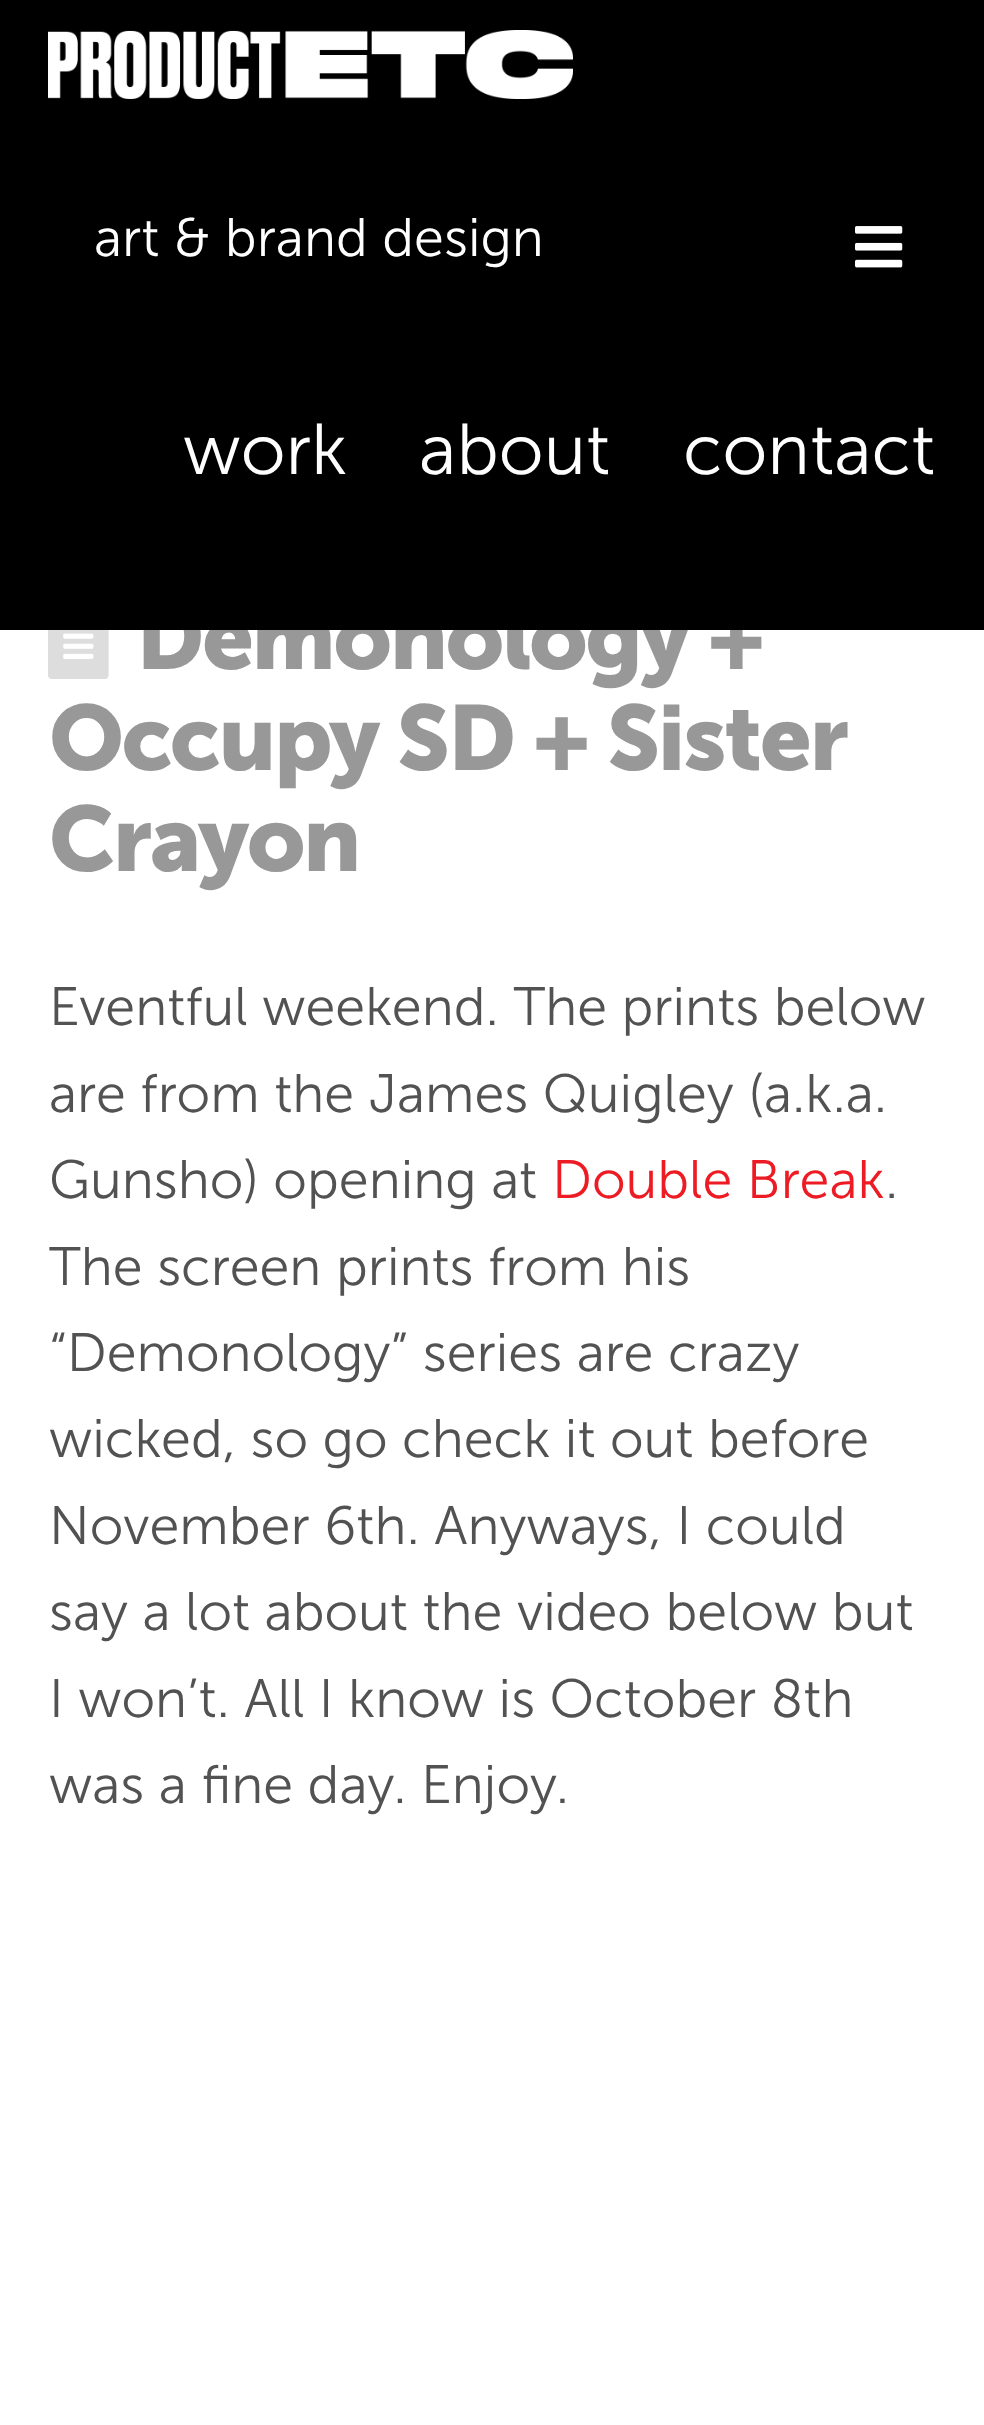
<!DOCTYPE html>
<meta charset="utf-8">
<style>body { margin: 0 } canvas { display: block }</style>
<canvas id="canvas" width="984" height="2425"></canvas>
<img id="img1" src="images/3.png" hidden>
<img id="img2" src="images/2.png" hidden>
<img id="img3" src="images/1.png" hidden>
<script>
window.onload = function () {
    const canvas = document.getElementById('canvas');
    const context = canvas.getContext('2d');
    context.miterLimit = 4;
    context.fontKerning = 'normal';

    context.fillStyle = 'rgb(255, 255, 255)';
    context.fillRect(0, 0, 984, 2425);
    context.drawImage(document.getElementById('img1'), 48, 630, 61, 49);
    context.letterSpacing = '-2.25px';
    context.font = 'bold 91.75px "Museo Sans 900"';
    context.fillStyle = 'rgb(152, 152, 152)';
    context.fillText('Demonology +', 136, 669);
    context.fillStyle = 'rgb(0, 0, 0)';
    context.fillRect(0, 0, 984, 630);
    context.letterSpacing = '0px';
    context.font = '300 72px "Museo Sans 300"';
    context.fillStyle = 'rgb(255, 255, 255)';
    context.fillText('contact', 683, 474);
    context.fillText('about', 419, 474);
    context.fillText('work', 183, 474);
    context.font = '300 54px "Museo Sans 300"';
    context.fillText('art & brand design', 94, 256);
    context.drawImage(document.getElementById('img2'), 855, 226, 48, 42);
    context.drawImage(document.getElementById('img3'), 48, 30, 525, 69);
    context.letterSpacing = '-2.25px';
    context.font = 'bold 91.75px "Museo Sans 900"';
    context.fillStyle = 'rgb(152, 152, 152)';
    context.fillText('Occupy SD + Sister', 49, 770);
    context.fillText('Crayon', 49, 871);
    context.letterSpacing = '0px';
    context.font = '300 54px "Museo Sans 300"';
    context.fillStyle = 'rgb(82, 82, 82)';
    context.fillText('Eventful weekend. The prints below', 49, 1025);
    context.fillText('are from the James Quigley (a.k.a.', 49, 1112);
    context.fillText('Gunsho) opening at', 49, 1198);
    context.fillStyle = 'rgb(237, 28, 36)';
    context.fillText('Double Break', 552, 1198);
    context.fillStyle = 'rgb(82, 82, 82)';
    context.fillText('.', 885, 1198);
    context.fillText('The screen prints from his', 49, 1285);
    context.fillText('“Demonology” series are crazy', 49, 1371);
    context.fillText('wicked, so go check it out before', 49, 1457);
    context.fillText('November 6th. Anyways, I could', 49, 1544);
    context.fillText('say a lot about the video below but', 49, 1630);
    context.fillText('I won’t. All I know is October 8th', 49, 1717);
    context.fillText('was a fine day. Enjoy.', 49, 1803);
};
</script>
